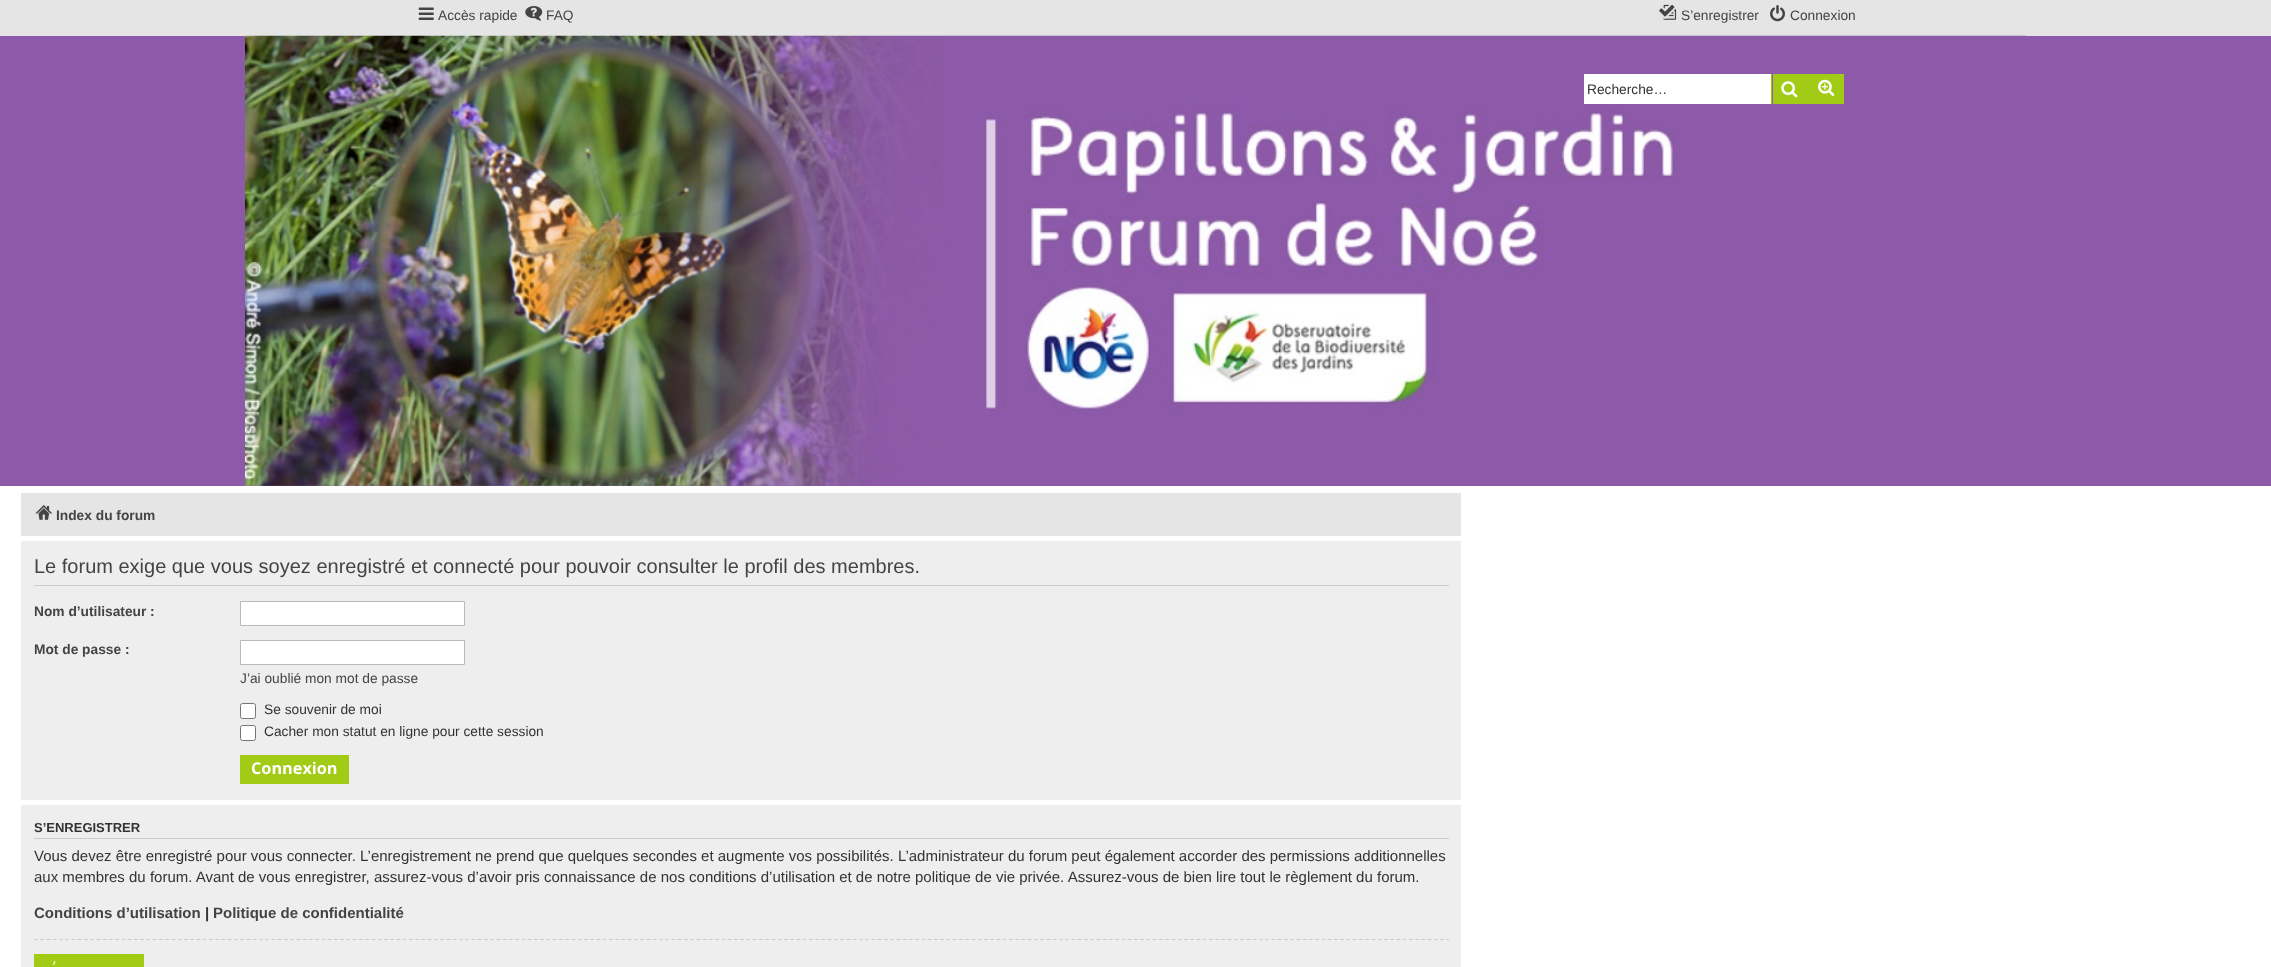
<!DOCTYPE html>
<meta charset="utf-8">
<style>body { margin: 0 } canvas { display: block }</style>
<canvas id="canvas" width="2271" height="967"></canvas>
<img id="img1" src="images/1.png" hidden>
<img id="img2" src="images/2.png" hidden>
<img id="img3" src="images/3.png" hidden>
<img id="img4" src="images/4.png" hidden>
<img id="img5" src="images/5.png" hidden>
<img id="img6" src="images/6.png" hidden>
<img id="img7" src="images/7.png" hidden>
<img id="img8" src="images/8.png" hidden>
<script>
window.onload = function () {
    const canvas = document.getElementById('canvas');
    const context = canvas.getContext('2d');
    context.miterLimit = 4;
    context.fontKerning = 'normal';

    context.fillStyle = 'rgb(255, 255, 255)';
    context.fillRect(0, 0, 2271, 967);
    context.fillStyle = 'rgb(229, 229, 229)';
    context.fillRect(0, 0, 2271, 36);
    context.drawImage(document.getElementById('img1'), 418, 7, 16, 13);
    context.drawImage(document.getElementById('img2'), 525, 6, 18, 15);
    context.drawImage(document.getElementById('img3'), 1659, 4, 18, 16);
    context.drawImage(document.getElementById('img4'), 1770, 5, 15, 17);
    context.fillStyle = 'rgb(141, 89, 169)';
    context.fillRect(0, 36, 2271, 450);
    context.drawImage(document.getElementById('img5'), 245, 35, 1782, 451);
    context.fillStyle = 'rgb(162, 203, 21)';
    context.fillRect(1773, 74, 71, 30);
    context.fillRect(1771, 74, 1, 30);
    context.drawImage(document.getElementById('img6'), 1781, 81, 17, 17);
    context.fillStyle = 'rgb(255, 255, 255)';
    context.fillRect(1584, 74, 187, 30);
    context.drawImage(document.getElementById('img7'), 1818, 79, 17, 17);
    context.fillStyle = 'rgb(229, 229, 229)';
    context.fillRect(21, 493, 1440, 43);
    context.drawImage(document.getElementById('img8'), 35, 505, 18, 15);
    context.fillStyle = 'rgb(238, 238, 238)';
    context.fillRect(21, 541, 1440, 259);
    context.fillStyle = 'rgb(204, 204, 204)';
    context.fillRect(34, 585, 1415, 1);
    context.fillStyle = 'rgb(255, 255, 255)';
    context.beginPath();
    context.rect(240.5, 601.5, 224, 24);
    context.fill();
    context.strokeStyle = 'rgb(180, 186, 192)';
    context.stroke();
    context.beginPath();
    context.rect(240.5, 640.5, 224, 24);
    context.fill();
    context.stroke();
    context.beginPath();
    context.roundRect(240.5, 703.5, 15, 15, 2);
    context.fill();
    context.strokeStyle = 'rgb(118, 118, 118)';
    context.stroke();
    context.beginPath();
    context.roundRect(240.5, 725.5, 15, 15, 2);
    context.fill();
    context.stroke();
    context.fillStyle = 'rgb(162, 203, 21)';
    context.fillRect(240, 755, 109, 29);
    context.fillStyle = 'rgb(238, 238, 238)';
    context.fillRect(21, 805, 1440, 162);
    context.fillStyle = 'rgb(204, 204, 204)';
    context.fillRect(34, 838, 1415, 1);
    context.beginPath();
    context.moveTo(34, 939.5);
    context.lineTo(1449, 939.5);
    context.strokeStyle = 'rgb(204, 204, 204)';
    context.lineWidth = 1.2;
    context.setLineDash([3.75, 2.5]);
    context.stroke();
    context.fillStyle = 'rgb(162, 203, 21)';
    context.fillRect(34, 954, 110, 13);
    context.font = '13.75px Liberation Sans';
    context.fillStyle = 'rgb(68, 68, 68)';
    context.fillText('Accès rapide', 438, 20);
    context.fillText('FAQ', 546, 20);
    context.fillText('S’enregistrer', 1681, 20);
    context.fillText('Connexion', 1790, 20);
    context.fillStyle = 'rgb(51, 51, 51)';
    context.fillText('Recherche…', 1587, 94);
    context.font = 'bold 13.75px Liberation Sans';
    context.fillStyle = 'rgb(68, 68, 68)';
    context.fillText('Index du forum', 56, 520);
    context.font = '20px Liberation Sans';
    context.fillText('Le forum exige que vous soyez enregistré et connecté pour pouvoir consulter le profil des membres.', 34, 573);
    context.font = 'bold 13.75px Liberation Sans';
    context.fillText('Nom d’utilisateur :', 34, 616);
    context.fillText('Mot de passe :', 34, 654);
    context.font = '13.75px Liberation Sans';
    context.fillText('J’ai oublié mon mot de passe', 240, 683);
    context.fillStyle = 'rgb(51, 51, 51)';
    context.fillText('Se souvenir de moi', 264, 714);
    context.fillText('Cacher mon statut en ligne pour cette session', 264, 736);
    context.font = 'bold 16.25px Open Sans';
    context.fillStyle = 'rgb(255, 255, 255)';
    context.fillText('Connexion', 251, 774);
    context.font = 'bold 13px Liberation Sans';
    context.fillStyle = 'rgb(51, 51, 51)';
    context.fillText('S’ENREGISTRER', 34, 832);
    context.font = '15px Liberation Sans';
    context.fillText('Vous devez être enregistré pour vous connecter. L’enregistrement ne prend que quelques secondes et augmente vos possibilités. L’administrateur du forum peut également accorder des permissions additionnelles', 34, 861);
    context.fillText('aux membres du forum. Avant de vous enregistrer, assurez-vous d’avoir pris connaissance de nos conditions d’utilisation et de notre politique de vie privée. Assurez-vous de bien lire tout le règlement du forum.', 34, 882);
    context.font = 'bold 15px Liberation Sans';
    context.fillStyle = 'rgb(68, 68, 68)';
    context.fillText('Conditions d’utilisation', 34, 918);
    context.fillStyle = 'rgb(51, 51, 51)';
    context.fillText('|', 205, 918);
    context.fillStyle = 'rgb(68, 68, 68)';
    context.fillText('Politique de confidentialité', 213, 918);
    context.font = '15px Open Sans';
    context.fillStyle = 'rgb(255, 255, 255)';
    context.fillText('’', 53, 972);
};
</script>
